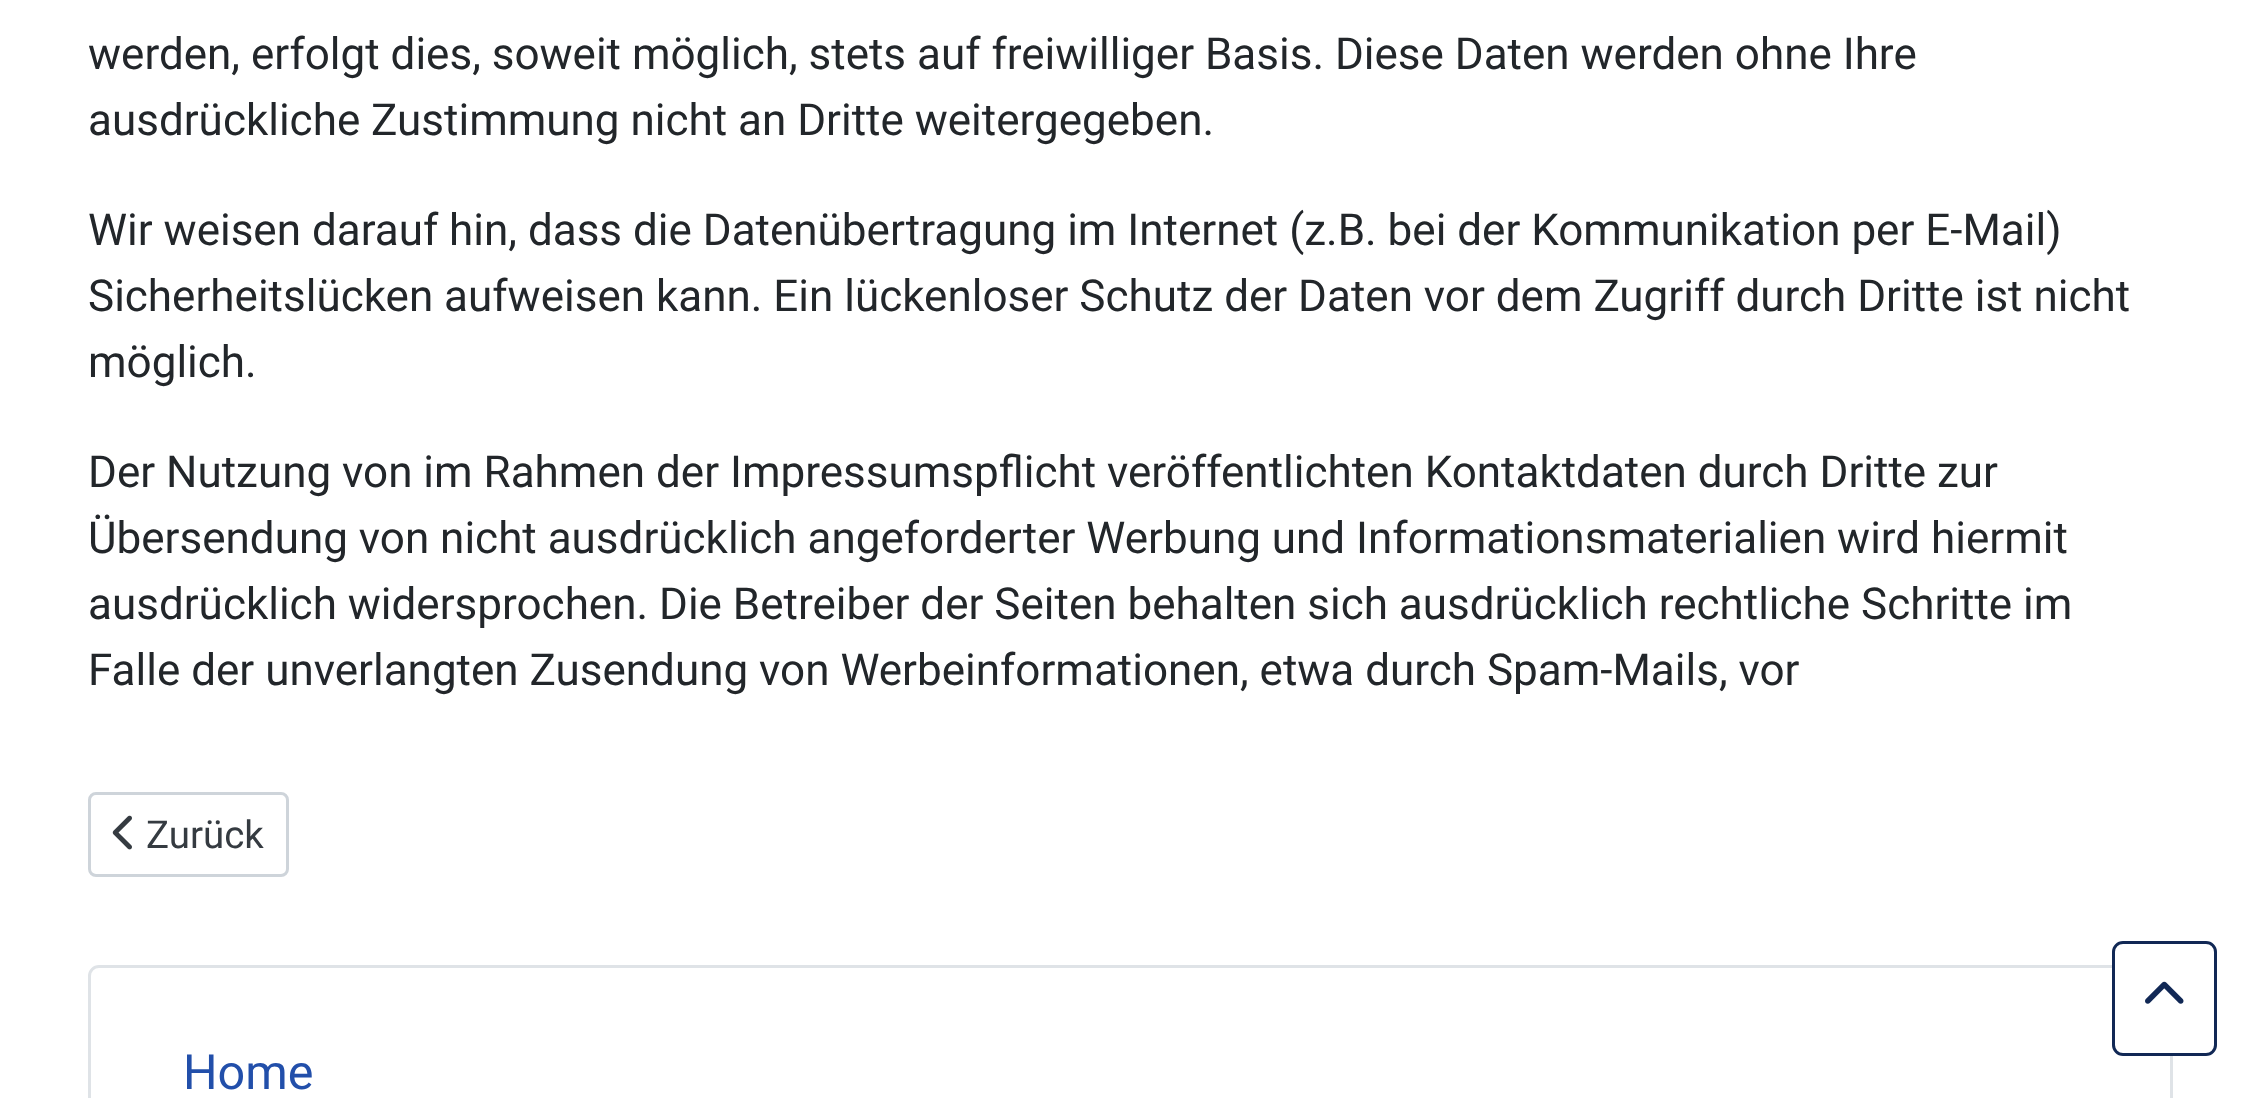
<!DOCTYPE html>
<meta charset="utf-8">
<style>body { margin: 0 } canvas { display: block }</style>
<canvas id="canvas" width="2260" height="1098"></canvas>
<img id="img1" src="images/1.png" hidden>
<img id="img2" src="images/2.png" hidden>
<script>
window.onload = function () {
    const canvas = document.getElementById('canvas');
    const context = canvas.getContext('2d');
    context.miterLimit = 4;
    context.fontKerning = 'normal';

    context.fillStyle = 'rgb(255, 255, 255)';
    context.fillRect(0, 0, 2260, 1098);
    context.beginPath();
    context.roundRect(89.5, 793.5, 198, 82, 6.5);
    context.strokeStyle = 'rgb(206, 212, 218)';
    context.lineWidth = 3;
    context.stroke();
    context.drawImage(document.getElementById('img1'), 112, 815, 20, 35);
    context.beginPath();
    context.roundRect(89.5, 966.5, 2082, 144, 9.5);
    context.strokeStyle = 'rgb(223, 227, 231)';
    context.stroke();
    context.beginPath();
    context.roundRect(2113.5, 942.5, 102, 112, 9.5);
    context.fill();
    context.strokeStyle = 'rgb(17, 40, 85)';
    context.stroke();
    context.drawImage(document.getElementById('img2'), 2145, 981, 39, 23);
    context.font = '44px Roboto';
    context.fillStyle = 'rgb(34, 38, 42)';
    context.fillText('werden, erfolgt dies, soweit möglich, stets auf freiwilliger Basis. Diese Daten werden ohne Ihre', 88, 69);
    context.fillText('ausdrückliche Zustimmung nicht an Dritte weitergegeben.', 88, 135);
    context.fillText('Wir weisen darauf hin, dass die Datenübertragung im Internet (z.B. bei der Kommunikation per E-Mail)', 88, 245);
    context.fillText('Sicherheitslücken aufweisen kann. Ein lückenloser Schutz der Daten vor dem Zugriff durch Dritte ist nicht', 88, 311);
    context.fillText('möglich.', 88, 377);
    context.fillText('Der Nutzung von im Rahmen der Impressumspflicht veröffentlichten Kontaktdaten durch Dritte zur', 88, 487);
    context.fillText('Übersendung von nicht ausdrücklich angeforderter Werbung und Informationsmaterialien wird hiermit', 88, 553);
    context.fillText('ausdrücklich widersprochen. Die Betreiber der Seiten behalten sich ausdrücklich rechtliche Schritte im', 88, 619);
    context.fillText('Falle der unverlangten Zusendung von Werbeinformationen, etwa durch Spam-Mails, vor', 88, 685);
    context.font = '38.5px Roboto';
    context.fillStyle = 'rgb(53, 59, 65)';
    context.fillText('Zurück', 146, 848);
    context.font = '48.5px Roboto';
    context.fillStyle = 'rgb(34, 79, 170)';
    context.fillText('Home', 183, 1089);
};
</script>
